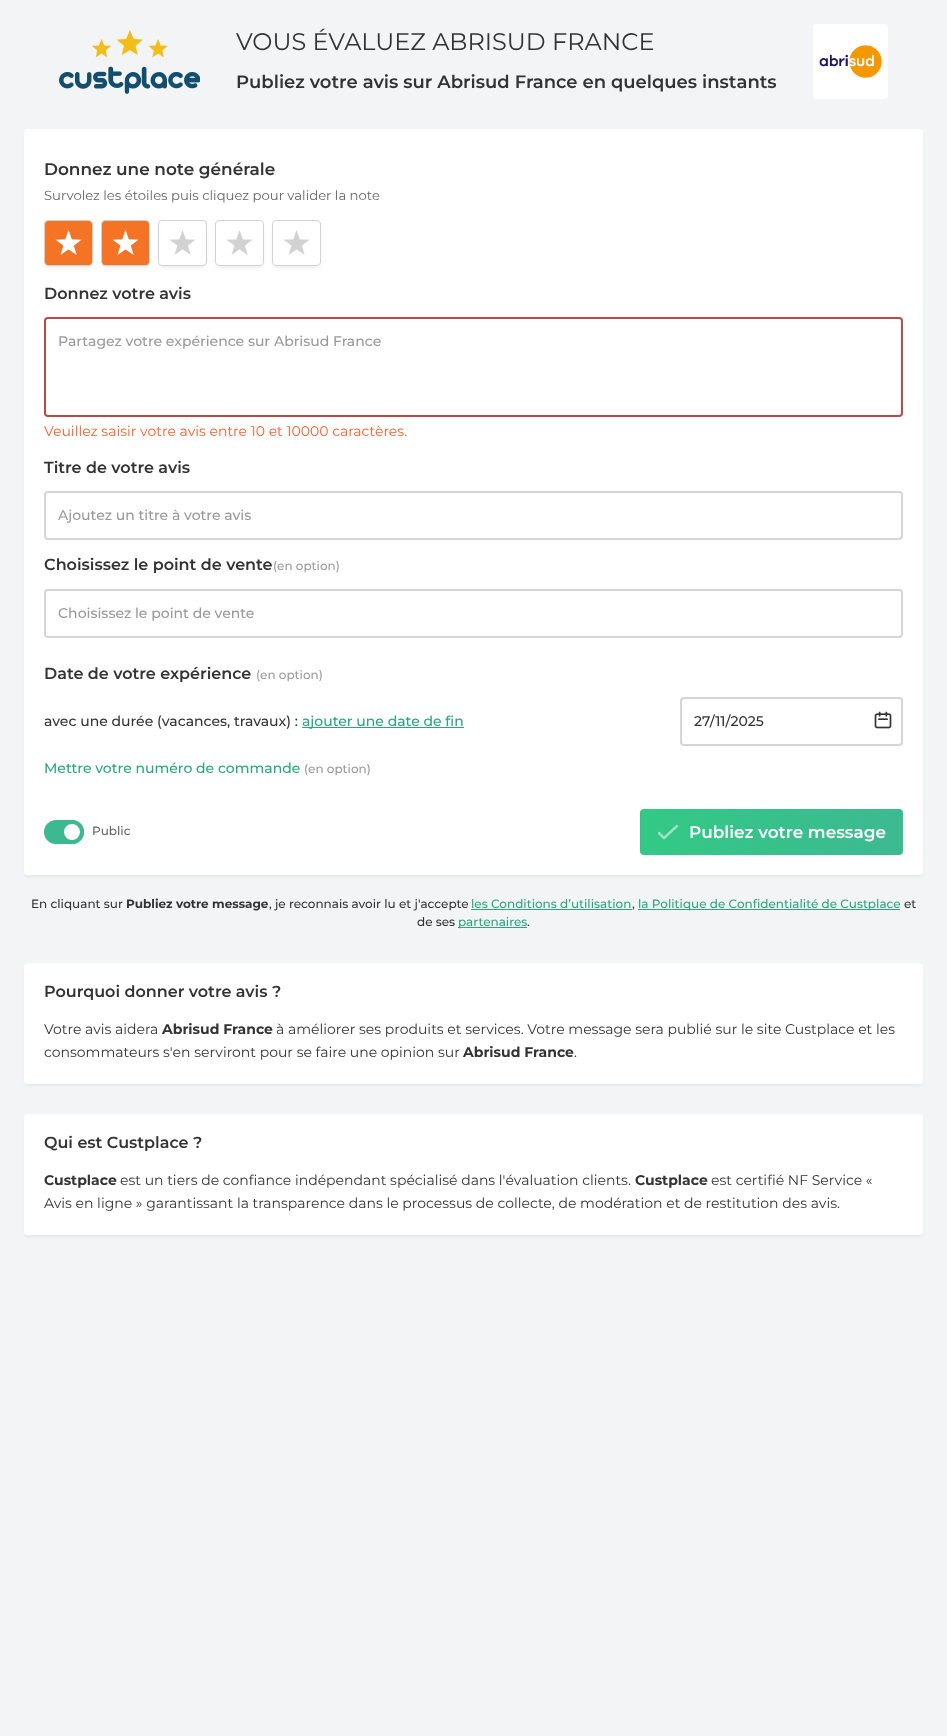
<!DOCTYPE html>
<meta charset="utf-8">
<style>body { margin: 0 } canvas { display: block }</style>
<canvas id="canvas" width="947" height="1736"></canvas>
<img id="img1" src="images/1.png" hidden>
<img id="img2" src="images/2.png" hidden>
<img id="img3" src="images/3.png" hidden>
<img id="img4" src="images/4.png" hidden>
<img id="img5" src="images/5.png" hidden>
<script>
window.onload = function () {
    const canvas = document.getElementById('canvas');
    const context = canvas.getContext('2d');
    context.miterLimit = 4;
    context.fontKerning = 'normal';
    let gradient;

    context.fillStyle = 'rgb(242, 244, 245)';
    context.fillRect(0, 0, 947, 1736);
    context.drawImage(document.getElementById('img1'), 59, 30, 141, 64);
    context.drawImage(document.getElementById('img2'), 813, 24, 75, 75);
    context.fillStyle = 'rgba(0, 0, 0, 0.05)';
    context.filter = 'blur(1.5px)';
    context.beginPath();
    context.roundRect(25, 133, 897, 744, 3);
    context.fill();
    context.filter = 'none';
    context.fillStyle = 'rgb(255, 255, 255)';
    context.beginPath();
    context.roundRect(24, 129, 899, 746, 4);
    context.fill();
    context.fillStyle = 'rgb(244, 115, 36)';
    context.beginPath();
    context.roundRect(44, 220, 49, 46, 6);
    context.fill();
    context.save();
    context.beginPath();
    context.moveTo(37, 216);
    context.lineTo(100, 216);
    context.lineTo(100, 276);
    context.lineTo(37, 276);
    context.closePath();
    context.moveTo(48, 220);
    context.lineTo(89, 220);
    context.bezierCurveTo(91, 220, 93, 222, 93, 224);
    context.lineTo(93, 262);
    context.bezierCurveTo(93, 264, 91, 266, 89, 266);
    context.lineTo(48, 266);
    context.bezierCurveTo(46, 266, 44, 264, 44, 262);
    context.lineTo(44, 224);
    context.bezierCurveTo(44, 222, 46, 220, 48, 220);
    context.closePath();
    context.clip('evenodd');
    context.fillStyle = 'rgba(0, 0, 0, 0.1)';
    context.filter = 'blur(2.5px)';
    context.beginPath();
    context.roundRect(46, 225, 45, 42, 2);
    context.fill();
    context.filter = 'none';
    context.restore();
    context.beginPath();
    context.roundRect(44.5, 220.5, 48, 45, 3.5);
    context.strokeStyle = 'rgb(210, 210, 210)';
    context.stroke();
    context.drawImage(document.getElementById('img3'), 55, 230, 27, 25);
    context.beginPath();
    context.roundRect(101, 220, 49, 46, 6);
    context.fill();
    context.save();
    context.beginPath();
    context.moveTo(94, 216);
    context.lineTo(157, 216);
    context.lineTo(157, 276);
    context.lineTo(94, 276);
    context.closePath();
    context.moveTo(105, 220);
    context.lineTo(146, 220);
    context.bezierCurveTo(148, 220, 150, 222, 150, 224);
    context.lineTo(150, 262);
    context.bezierCurveTo(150, 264, 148, 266, 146, 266);
    context.lineTo(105, 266);
    context.bezierCurveTo(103, 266, 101, 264, 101, 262);
    context.lineTo(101, 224);
    context.bezierCurveTo(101, 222, 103, 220, 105, 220);
    context.closePath();
    context.clip('evenodd');
    context.fillStyle = 'rgba(0, 0, 0, 0.1)';
    context.filter = 'blur(2.5px)';
    context.beginPath();
    context.roundRect(103, 225, 45, 42, 2);
    context.fill();
    context.filter = 'none';
    context.restore();
    context.beginPath();
    context.roundRect(101.5, 220.5, 48, 45, 3.5);
    context.stroke();
    context.drawImage(document.getElementById('img3'), 112, 230, 27, 25);
    context.save();
    context.beginPath();
    context.moveTo(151, 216);
    context.lineTo(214, 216);
    context.lineTo(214, 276);
    context.lineTo(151, 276);
    context.closePath();
    context.moveTo(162, 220);
    context.lineTo(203, 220);
    context.bezierCurveTo(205, 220, 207, 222, 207, 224);
    context.lineTo(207, 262);
    context.bezierCurveTo(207, 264, 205, 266, 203, 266);
    context.lineTo(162, 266);
    context.bezierCurveTo(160, 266, 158, 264, 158, 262);
    context.lineTo(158, 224);
    context.bezierCurveTo(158, 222, 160, 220, 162, 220);
    context.closePath();
    context.clip('evenodd');
    context.fillStyle = 'rgba(0, 0, 0, 0.1)';
    context.filter = 'blur(2.5px)';
    context.beginPath();
    context.roundRect(160, 225, 45, 42, 2);
    context.fill();
    context.filter = 'none';
    context.restore();
    context.beginPath();
    context.roundRect(158.5, 220.5, 48, 45, 3.5);
    context.stroke();
    context.drawImage(document.getElementById('img4'), 169, 230, 27, 25);
    context.save();
    context.beginPath();
    context.moveTo(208, 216);
    context.lineTo(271, 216);
    context.lineTo(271, 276);
    context.lineTo(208, 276);
    context.closePath();
    context.moveTo(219, 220);
    context.lineTo(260, 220);
    context.bezierCurveTo(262, 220, 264, 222, 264, 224);
    context.lineTo(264, 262);
    context.bezierCurveTo(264, 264, 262, 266, 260, 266);
    context.lineTo(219, 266);
    context.bezierCurveTo(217, 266, 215, 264, 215, 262);
    context.lineTo(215, 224);
    context.bezierCurveTo(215, 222, 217, 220, 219, 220);
    context.closePath();
    context.clip('evenodd');
    context.fillStyle = 'rgba(0, 0, 0, 0.1)';
    context.filter = 'blur(2.5px)';
    context.beginPath();
    context.roundRect(217, 225, 45, 42, 2);
    context.fill();
    context.filter = 'none';
    context.restore();
    context.beginPath();
    context.roundRect(215.5, 220.5, 48, 45, 3.5);
    context.stroke();
    context.drawImage(document.getElementById('img4'), 226, 230, 27, 25);
    context.save();
    context.beginPath();
    context.moveTo(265, 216);
    context.lineTo(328, 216);
    context.lineTo(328, 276);
    context.lineTo(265, 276);
    context.closePath();
    context.moveTo(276, 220);
    context.lineTo(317, 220);
    context.bezierCurveTo(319, 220, 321, 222, 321, 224);
    context.lineTo(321, 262);
    context.bezierCurveTo(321, 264, 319, 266, 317, 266);
    context.lineTo(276, 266);
    context.bezierCurveTo(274, 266, 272, 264, 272, 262);
    context.lineTo(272, 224);
    context.bezierCurveTo(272, 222, 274, 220, 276, 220);
    context.closePath();
    context.clip('evenodd');
    context.fillStyle = 'rgba(0, 0, 0, 0.1)';
    context.filter = 'blur(2.5px)';
    context.beginPath();
    context.roundRect(274, 225, 45, 42, 2);
    context.fill();
    context.filter = 'none';
    context.restore();
    context.beginPath();
    context.roundRect(272.5, 220.5, 48, 45, 3.5);
    context.stroke();
    context.drawImage(document.getElementById('img4'), 283, 230, 27, 25);
    context.beginPath();
    context.roundRect(45, 318, 857, 98, 3);
    context.strokeStyle = 'rgb(185, 74, 72)';
    context.lineWidth = 2;
    context.stroke();
    context.beginPath();
    context.roundRect(45, 492, 857, 47, 3);
    context.strokeStyle = 'rgb(213, 213, 213)';
    context.stroke();
    context.beginPath();
    context.roundRect(45, 590, 857, 47, 3);
    context.stroke();
    context.fillStyle = 'rgb(44, 165, 127)';
    context.fillRect(302, 727, 162, 1);
    context.beginPath();
    context.roundRect(681, 698, 221, 47, 3);
    context.stroke();
    context.drawImage(document.getElementById('img5'), 874, 711, 18, 18);
    context.fillStyle = 'rgb(61, 185, 146)';
    context.beginPath();
    context.roundRect(44, 820, 40, 24, 12);
    context.fill();
    context.fillStyle = 'rgb(255, 255, 255)';
    context.beginPath();
    context.arc(72, 832, 10, 0, 2 * Math.PI);
    context.fill();
    context.strokeStyle = 'rgb(61, 185, 146)';
    context.lineWidth = 4;
    context.stroke();
    context.save();
    context.beginPath();
    context.roundRect(640, 809, 263, 46, 4);
    context.clip();
    gradient = context.createLinearGradient(380, 832, 641, 832);
    gradient.addColorStop(0, 'rgb(50, 201, 133)');
    gradient.addColorStop(1, 'rgb(61, 185, 146)');
    context.fillStyle = gradient;
    context.fillRect(640, 809, 1, 46);
    gradient = context.createLinearGradient(641, 832, 902, 832);
    gradient.addColorStop(0, 'rgb(50, 201, 133)');
    gradient.addColorStop(1, 'rgb(61, 185, 146)');
    context.fillStyle = gradient;
    context.fillRect(641, 809, 261, 46);
    gradient = context.createLinearGradient(902, 832, 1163, 832);
    gradient.addColorStop(0, 'rgb(50, 201, 133)');
    gradient.addColorStop(1, 'rgb(61, 185, 146)');
    context.fillStyle = gradient;
    context.fillRect(902, 809, 1, 46);
    context.restore();
    context.beginPath();
    context.moveTo(659, 833);
    context.lineTo(664, 838);
    context.lineTo(677, 826);
    context.strokeStyle = 'rgb(153, 227, 195)';
    context.lineWidth = 2.5;
    context.lineCap = 'round';
    context.lineJoin = 'round';
    context.stroke();
    context.fillStyle = 'rgb(44, 165, 127)';
    context.fillRect(471, 909, 161, 1);
    context.fillRect(638, 909, 262, 1);
    context.fillRect(458, 927, 69, 1);
    context.fillStyle = 'rgba(0, 0, 0, 0.05)';
    context.filter = 'blur(1.5px)';
    context.beginPath();
    context.roundRect(25, 967, 897, 119, 3);
    context.fill();
    context.filter = 'none';
    context.fillStyle = 'rgb(255, 255, 255)';
    context.beginPath();
    context.roundRect(24, 963, 899, 121, 4);
    context.fill();
    context.fillStyle = 'rgba(0, 0, 0, 0.05)';
    context.filter = 'blur(1.5px)';
    context.beginPath();
    context.roundRect(25, 1118, 897, 119, 3);
    context.fill();
    context.filter = 'none';
    context.fillStyle = 'rgb(255, 255, 255)';
    context.beginPath();
    context.roundRect(24, 1114, 899, 121, 4);
    context.fill();
    context.font = '100 24px Montserrat';
    context.fillStyle = 'rgb(51, 51, 51)';
    context.fillText('VOUS ÉVALUEZ ABRISUD FRANCE', 236, 50);
    context.font = '100 18px "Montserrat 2"';
    context.fillText('Publiez votre avis sur Abrisud France en quelques instants', 236, 88);
    context.font = '100 16.9px "Montserrat 2"';
    context.fillText('Donnez une note générale', 44, 175);
    context.font = '100 13.2px Montserrat';
    context.fillStyle = 'rgb(102, 102, 102)';
    context.fillText('Survolez les étoiles puis cliquez pour valider la note', 44, 200);
    context.font = '100 16px "Montserrat 2"';
    context.fillStyle = 'rgb(51, 51, 51)';
    context.fillText('Donnez votre avis', 44, 299);
    context.font = '100 14px "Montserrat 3"';
    context.fillStyle = 'rgb(153, 153, 153)';
    context.fillText('Partagez votre expérience sur Abrisud France', 58, 346);
    context.font = '100 14px Montserrat';
    context.fillStyle = 'rgb(249, 96, 49)';
    context.fillText('Veuillez saisir votre avis entre 10 et 10000 caractères.', 44, 436);
    context.font = '100 16px "Montserrat 2"';
    context.fillStyle = 'rgb(51, 51, 51)';
    context.fillText('Titre de votre avis', 44, 473);
    context.font = '100 14px "Montserrat 3"';
    context.fillStyle = 'rgb(153, 153, 153)';
    context.fillText('Ajoutez un titre à votre avis', 58, 520);
    context.font = '100 16px "Montserrat 2"';
    context.fillStyle = 'rgb(51, 51, 51)';
    context.fillText('Choisissez le point de vente', 44, 570);
    context.font = '100 12px "Montserrat 3"';
    context.fillStyle = 'rgb(153, 153, 153)';
    context.fillText('(en option)', 273, 570);
    context.font = '100 14px "Montserrat 3"';
    context.fillText('Choisissez le point de vente', 58, 618);
    context.font = '100 16px "Montserrat 2"';
    context.fillStyle = 'rgb(51, 51, 51)';
    context.fillText('Date de votre expérience', 44, 679);
    context.font = '100 12px "Montserrat 3"';
    context.fillStyle = 'rgb(153, 153, 153)';
    context.fillText('(en option)', 256, 679);
    context.font = '100 14px "Montserrat 3"';
    context.fillStyle = 'rgb(51, 51, 51)';
    context.fillText('avec une durée (vacances, travaux) :', 44, 726);
    context.fillStyle = 'rgb(44, 165, 127)';
    context.fillText('ajouter une date de fin', 302, 726);
    context.fillStyle = 'rgb(51, 51, 51)';
    context.fillText('27/11/2025', 694, 726);
    context.fillStyle = 'rgb(44, 165, 127)';
    context.fillText('Mettre votre numéro de commande', 44, 773);
    context.font = '100 12px "Montserrat 3"';
    context.fillStyle = 'rgb(153, 153, 153)';
    context.fillText('(en option)', 304, 773);
    context.fillStyle = 'rgb(102, 102, 102)';
    context.fillText('Public', 92, 835);
    context.font = '100 16.9px "Montserrat 2"';
    context.fillStyle = 'rgb(255, 255, 255)';
    context.fillText('Publiez votre message', 689, 838);
    context.font = '100 12px "Montserrat 3"';
    context.fillStyle = 'rgb(51, 51, 51)';
    context.fillText('En cliquant sur', 31, 908);
    context.font = '100 12px "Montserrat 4"';
    context.fillText('Publiez votre message', 126, 908);
    context.font = '100 12px "Montserrat 3"';
    context.fillText(', je reconnais avoir lu et j\'accepte', 269, 908);
    context.fillStyle = 'rgb(44, 165, 127)';
    context.fillText('les Conditions d’utilisation', 471, 908);
    context.fillStyle = 'rgb(51, 51, 51)';
    context.fillText(',', 632, 908);
    context.fillStyle = 'rgb(44, 165, 127)';
    context.fillText('la Politique de Confidentialité de Custplace', 638, 908);
    context.fillStyle = 'rgb(51, 51, 51)';
    context.fillText('et', 904, 908);
    context.fillText('de ses', 417, 926);
    context.fillStyle = 'rgb(44, 165, 127)';
    context.fillText('partenaires', 458, 926);
    context.fillStyle = 'rgb(51, 51, 51)';
    context.fillText('.', 527, 926);
    context.font = '100 16px "Montserrat 2"';
    context.fillText('Pourquoi donner votre avis ?', 44, 997);
    context.font = '100 14px Montserrat';
    context.fillText('Votre avis aidera', 44, 1034);
    context.font = '100 14px "Montserrat 4"';
    context.fillText('Abrisud France', 162, 1034);
    context.font = '100 14px Montserrat';
    context.fillText('à améliorer ses produits et services. Votre message sera publié sur le site Custplace et les', 276, 1034);
    context.fillText('consommateurs s\'en serviront pour se faire une opinion sur', 44, 1057);
    context.font = '100 14px "Montserrat 4"';
    context.fillText('Abrisud France', 463, 1057);
    context.font = '100 14px Montserrat';
    context.fillText('.', 574, 1057);
    context.font = '100 16px "Montserrat 2"';
    context.fillText('Qui est Custplace ?', 44, 1148);
    context.font = '100 14px "Montserrat 4"';
    context.fillText('Custplace', 44, 1185);
    context.font = '100 14px Montserrat';
    context.fillText('est un tiers de confiance indépendant spécialisé dans l\'évaluation clients.', 120, 1185);
    context.font = '100 14px "Montserrat 4"';
    context.fillText('Custplace', 635, 1185);
    context.font = '100 14px Montserrat';
    context.fillText('est certifié NF Service «', 711, 1185);
    context.fillText('Avis en ligne » garantissant la transparence dans le processus de collecte, de modération et de restitution des avis.', 44, 1208);
};
</script>
